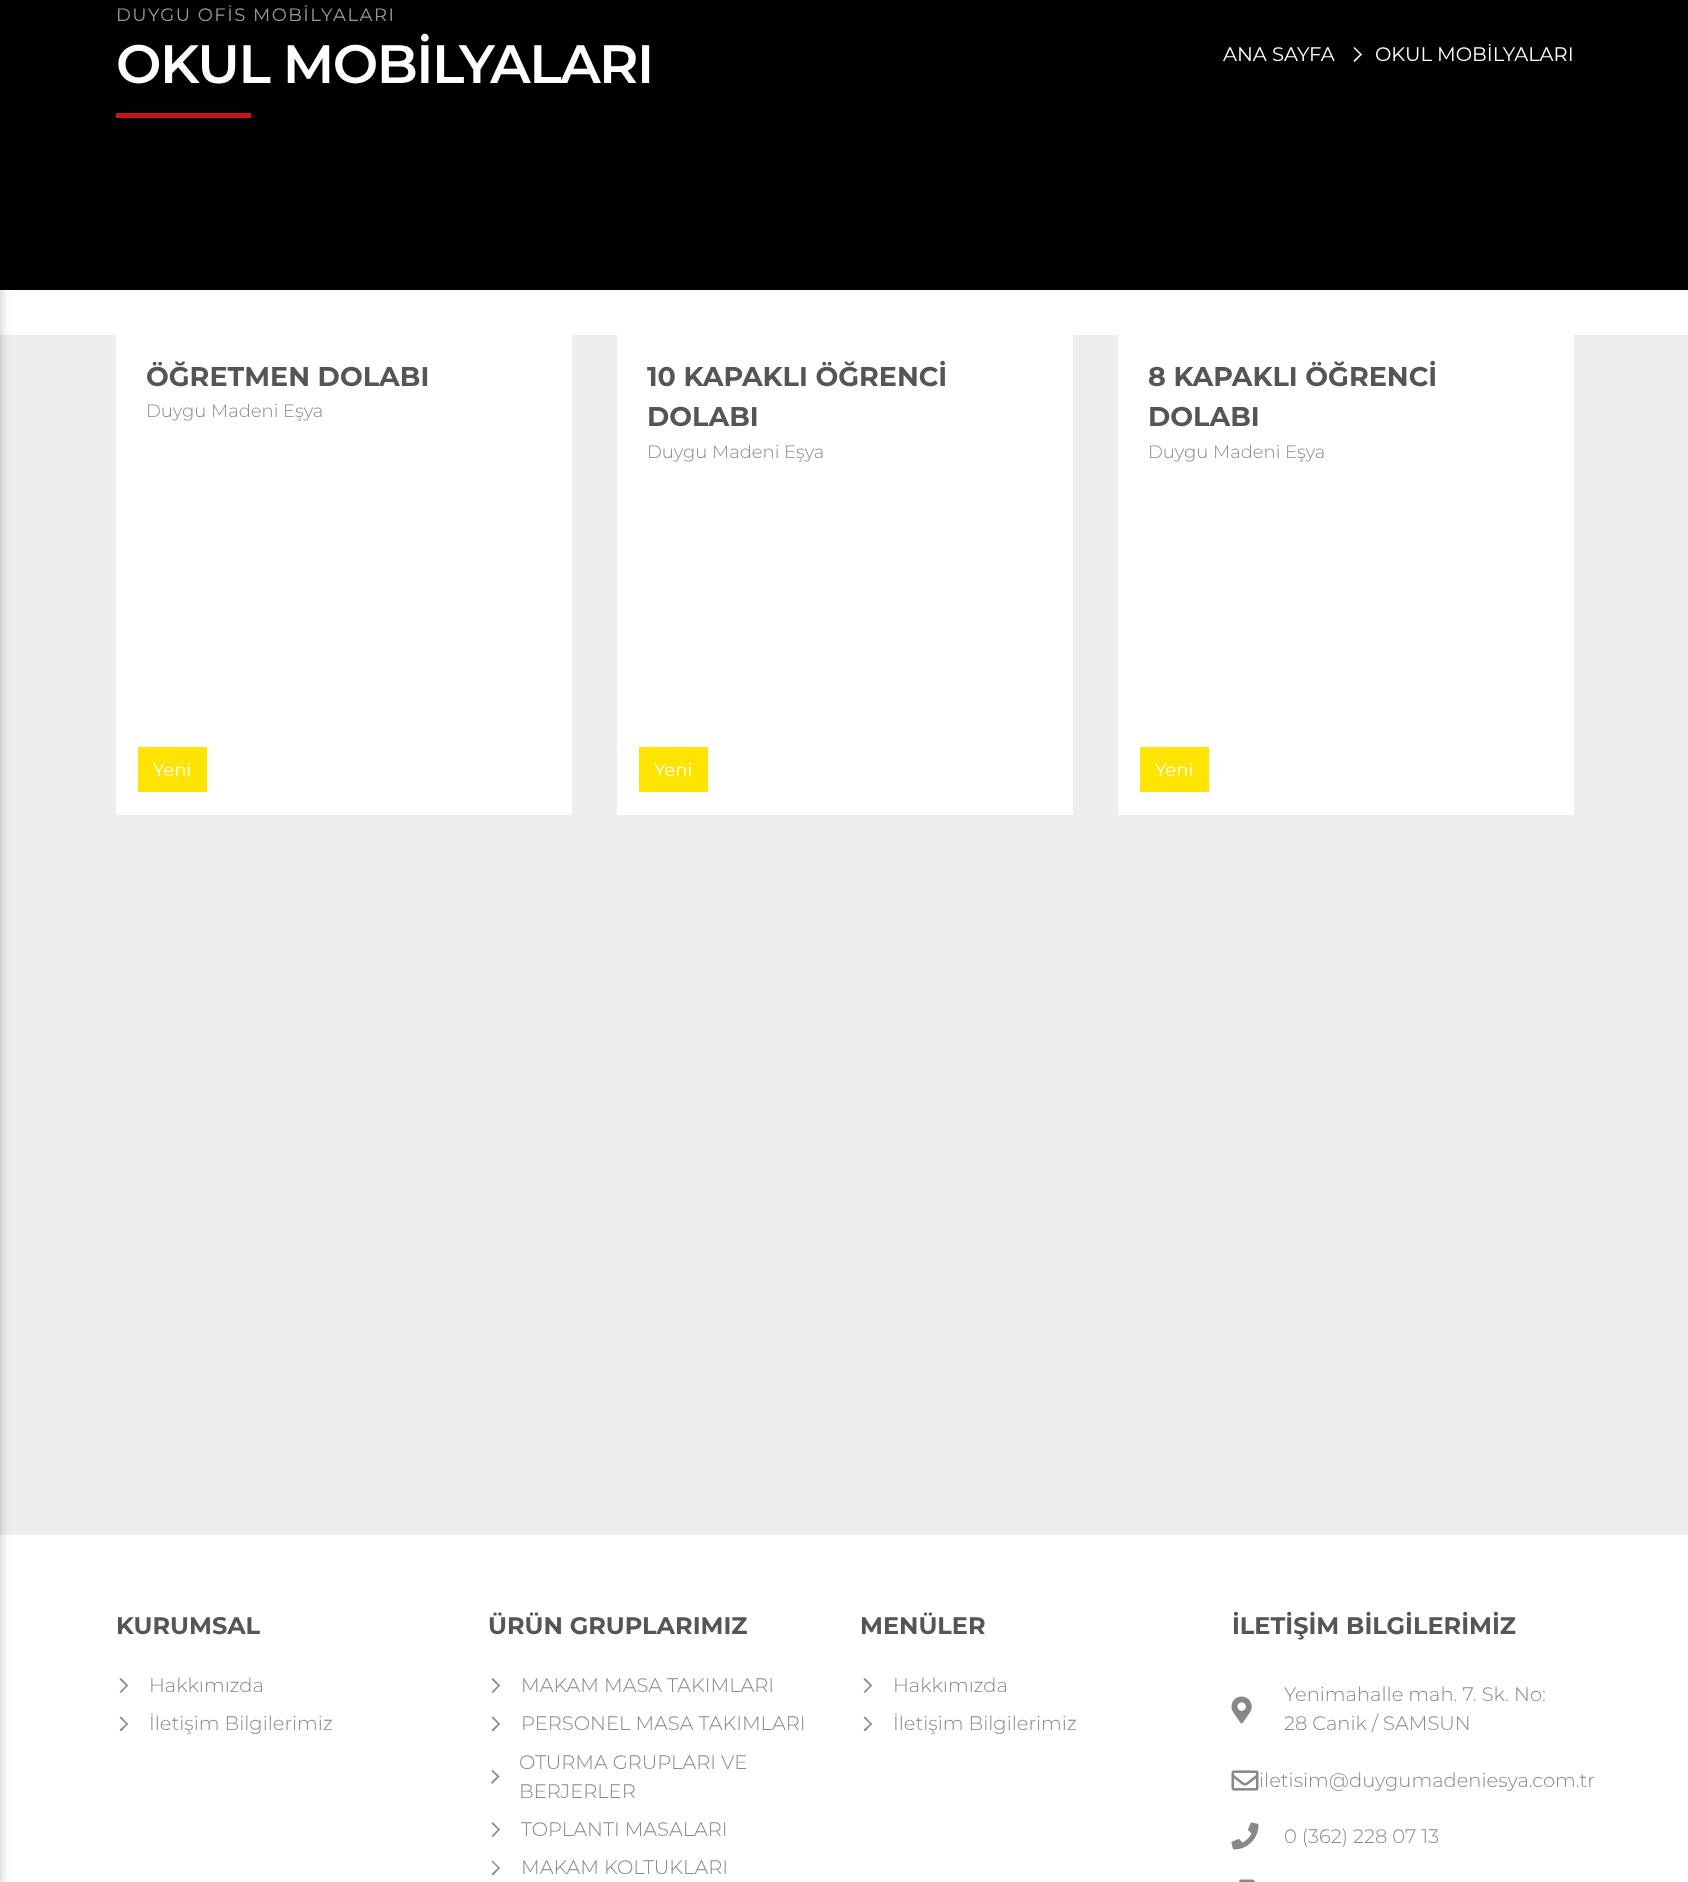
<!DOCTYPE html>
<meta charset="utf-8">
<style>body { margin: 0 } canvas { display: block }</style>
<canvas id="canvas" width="1688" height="1882"></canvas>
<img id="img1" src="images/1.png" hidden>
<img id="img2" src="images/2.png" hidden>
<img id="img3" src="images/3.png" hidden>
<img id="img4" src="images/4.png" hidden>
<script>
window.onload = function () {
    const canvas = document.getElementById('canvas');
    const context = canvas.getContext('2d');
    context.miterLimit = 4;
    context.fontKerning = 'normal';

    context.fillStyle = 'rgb(255, 255, 255)';
    context.fillRect(0, 0, 1688, 1882);
    context.fillStyle = 'rgb(0, 0, 0)';
    context.fillRect(0, 0, 1688, 290);
    context.fillStyle = 'rgb(238, 238, 238)';
    context.fillRect(0, 335, 1688, 1200);
    context.fillStyle = 'rgba(0, 0, 0, 0.1)';
    context.filter = 'blur(7.5px)';
    context.beginPath();
    context.rect(-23, 3, 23, 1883);
    context.fill();
    context.filter = 'none';
    context.fillStyle = 'rgba(0, 0, 0, 0.15)';
    context.filter = 'blur(4px)';
    context.beginPath();
    context.rect(-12, 3, 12, 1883);
    context.fill();
    context.filter = 'none';
    context.fillStyle = 'rgb(197, 21, 22)';
    context.fillRect(116, 113, 135, 5);
    context.fillStyle = 'rgb(255, 255, 255)';
    context.beginPath();
    context.moveTo(1354.5, 47);
    context.lineTo(1362, 54.5);
    context.lineTo(1361, 55.5);
    context.lineTo(1353.5, 48);
    context.closePath();
    context.fill();
    context.beginPath();
    context.moveTo(1361, 53.5);
    context.lineTo(1362, 54.5);
    context.lineTo(1354.5, 62);
    context.lineTo(1353.5, 60.5);
    context.closePath();
    context.fill();
    context.fillRect(116, 335, 456, 480);
    context.fillStyle = 'rgb(255, 228, 0)';
    context.fillRect(138, 747, 69, 45);
    context.fillStyle = 'rgb(255, 255, 255)';
    context.fillRect(617, 335, 456, 480);
    context.fillStyle = 'rgb(255, 228, 0)';
    context.fillRect(639, 747, 69, 45);
    context.fillStyle = 'rgb(255, 255, 255)';
    context.fillRect(1118, 335, 456, 480);
    context.fillStyle = 'rgb(255, 228, 0)';
    context.fillRect(1140, 747, 69, 45);
    context.fillStyle = 'rgb(136, 136, 136)';
    context.beginPath();
    context.moveTo(121, 1678);
    context.lineTo(128, 1685.5);
    context.lineTo(127, 1686.5);
    context.lineTo(119.5, 1679.5);
    context.closePath();
    context.fill();
    context.beginPath();
    context.moveTo(127, 1684.5);
    context.lineTo(128, 1685.5);
    context.lineTo(121, 1693);
    context.lineTo(119.5, 1692);
    context.closePath();
    context.moveTo(121, 1716.5);
    context.lineTo(128, 1724);
    context.lineTo(127, 1725);
    context.lineTo(119.5, 1717.5);
    context.closePath();
    context.fill();
    context.beginPath();
    context.moveTo(127, 1723);
    context.lineTo(128, 1724);
    context.lineTo(121, 1731.5);
    context.lineTo(119.5, 1730);
    context.closePath();
    context.fill();
    context.beginPath();
    context.moveTo(493, 1678);
    context.lineTo(500, 1685.5);
    context.lineTo(499, 1686.5);
    context.lineTo(491.5, 1679.5);
    context.closePath();
    context.fill();
    context.beginPath();
    context.moveTo(499, 1684.5);
    context.lineTo(500, 1685.5);
    context.lineTo(493, 1693);
    context.lineTo(491.5, 1692);
    context.closePath();
    context.moveTo(493, 1716.5);
    context.lineTo(500, 1724);
    context.lineTo(499, 1725);
    context.lineTo(491.5, 1717.5);
    context.closePath();
    context.fill();
    context.beginPath();
    context.moveTo(499, 1723);
    context.lineTo(500, 1724);
    context.lineTo(493, 1731.5);
    context.lineTo(491.5, 1730);
    context.closePath();
    context.moveTo(492.5, 1769.5);
    context.lineTo(499.5, 1776.5);
    context.lineTo(498, 1777.5);
    context.lineTo(491.5, 1771);
    context.closePath();
    context.fill();
    context.beginPath();
    context.moveTo(498, 1775.5);
    context.lineTo(499.5, 1776.5);
    context.lineTo(492, 1784);
    context.lineTo(491, 1782.5);
    context.closePath();
    context.moveTo(492.5, 1822);
    context.lineTo(500, 1829.5);
    context.lineTo(499, 1830.5);
    context.lineTo(491.5, 1823.5);
    context.closePath();
    context.fill();
    context.beginPath();
    context.moveTo(499, 1828.5);
    context.lineTo(500, 1829.5);
    context.lineTo(493, 1837);
    context.lineTo(491.5, 1836);
    context.closePath();
    context.moveTo(492.5, 1860.5);
    context.lineTo(500, 1868);
    context.lineTo(499, 1869);
    context.lineTo(491.5, 1861.5);
    context.closePath();
    context.fill();
    context.beginPath();
    context.moveTo(499, 1867);
    context.lineTo(500, 1868);
    context.lineTo(493, 1875.5);
    context.lineTo(491.5, 1874);
    context.closePath();
    context.fill();
    context.beginPath();
    context.moveTo(865, 1678);
    context.lineTo(872, 1685.5);
    context.lineTo(871, 1686.5);
    context.lineTo(863.5, 1679.5);
    context.closePath();
    context.fill();
    context.beginPath();
    context.moveTo(871, 1684.5);
    context.lineTo(872, 1685.5);
    context.lineTo(865, 1693);
    context.lineTo(863.5, 1692);
    context.closePath();
    context.moveTo(865, 1716.5);
    context.lineTo(872, 1724);
    context.lineTo(871, 1725);
    context.lineTo(863.5, 1717.5);
    context.closePath();
    context.fill();
    context.beginPath();
    context.moveTo(871, 1723);
    context.lineTo(872, 1724);
    context.lineTo(865, 1731.5);
    context.lineTo(863.5, 1730);
    context.closePath();
    context.fill();
    context.drawImage(document.getElementById('img1'), 1231, 1696, 21, 28);
    context.drawImage(document.getElementById('img2'), 1231, 1770, 28, 21);
    context.drawImage(document.getElementById('img3'), 1231, 1822, 28, 28);
    context.drawImage(document.getElementById('img4'), 1239, 1879, 17, 3);
    context.letterSpacing = '1.5px';
    context.font = '18px Montserrat';
    context.fillStyle = 'rgb(153, 153, 153)';
    context.fillText('DUYGU OFİS MOBİLYALARI', 116, 21);
    context.letterSpacing = '-1.5px';
    context.font = '600 54px Montserrat';
    context.fillStyle = 'rgb(255, 255, 255)';
    context.fillText('OKUL MOBİLYALARI', 116, 83);
    context.letterSpacing = '0px';
    context.font = '19.5px Montserrat';
    context.fillText('ANA SAYFA', 1223, 61);
    context.fillText('OKUL MOBİLYALARI', 1375, 61);
    context.font = 'bold 27px Montserrat';
    context.fillStyle = 'rgb(85, 85, 85)';
    context.fillText('ÖĞRETMEN DOLABI', 146, 386);
    context.font = '300 18px Montserrat';
    context.fillStyle = 'rgb(136, 136, 136)';
    context.fillText('Duygu Madeni Eşya', 146, 417);
    context.font = '18px Montserrat';
    context.fillStyle = 'rgb(255, 255, 255)';
    context.fillText('Yeni', 153, 776);
    context.font = 'bold 27px Montserrat';
    context.fillStyle = 'rgb(85, 85, 85)';
    context.fillText('10 KAPAKLI ÖĞRENCİ', 647, 386);
    context.fillText('DOLABI', 647, 426);
    context.font = '300 18px Montserrat';
    context.fillStyle = 'rgb(136, 136, 136)';
    context.fillText('Duygu Madeni Eşya', 647, 458);
    context.font = '18px Montserrat';
    context.fillStyle = 'rgb(255, 255, 255)';
    context.fillText('Yeni', 654, 776);
    context.font = 'bold 27px Montserrat';
    context.fillStyle = 'rgb(85, 85, 85)';
    context.fillText('8 KAPAKLI ÖĞRENCİ', 1148, 386);
    context.fillText('DOLABI', 1148, 426);
    context.font = '300 18px Montserrat';
    context.fillStyle = 'rgb(136, 136, 136)';
    context.fillText('Duygu Madeni Eşya', 1148, 458);
    context.font = '18px Montserrat';
    context.fillStyle = 'rgb(255, 255, 255)';
    context.fillText('Yeni', 1155, 776);
    context.font = 'bold 24px Montserrat';
    context.fillStyle = 'rgb(85, 85, 85)';
    context.fillText('KURUMSAL', 116, 1634);
    context.font = '300 19.5px Montserrat';
    context.fillStyle = 'rgb(136, 136, 136)';
    context.fillText('Hakkımızda', 149, 1692);
    context.fillText('İletişim Bilgilerimiz', 149, 1730);
    context.font = 'bold 24px Montserrat';
    context.fillStyle = 'rgb(85, 85, 85)';
    context.fillText('ÜRÜN GRUPLARIMIZ', 488, 1634);
    context.font = '300 19.5px Montserrat';
    context.fillStyle = 'rgb(136, 136, 136)';
    context.fillText('MAKAM MASA TAKIMLARI', 521, 1692);
    context.fillText('PERSONEL MASA TAKIMLARI', 521, 1730);
    context.fillText('OTURMA GRUPLARI VE', 519, 1769);
    context.fillText('BERJERLER', 519, 1798);
    context.fillText('TOPLANTI MASALARI', 521, 1836);
    context.fillText('MAKAM KOLTUKLARI', 521, 1874);
    context.font = 'bold 24px Montserrat';
    context.fillStyle = 'rgb(85, 85, 85)';
    context.fillText('MENÜLER', 860, 1634);
    context.font = '300 19.5px Montserrat';
    context.fillStyle = 'rgb(136, 136, 136)';
    context.fillText('Hakkımızda', 893, 1692);
    context.fillText('İletişim Bilgilerimiz', 893, 1730);
    context.font = 'bold 24px Montserrat';
    context.fillStyle = 'rgb(85, 85, 85)';
    context.fillText('İLETİŞİM BİLGİLERİMİZ', 1232, 1634);
    context.font = '300 19.5px Montserrat';
    context.fillStyle = 'rgb(136, 136, 136)';
    context.fillText('Yenimahalle mah. 7. Sk. No:', 1284, 1701);
    context.fillText('28 Canik / SAMSUN', 1284, 1730);
    context.fillText('iletisim@duygumadeniesya.com.tr', 1259, 1787);
    context.fillText('0 (362) 228 07 13', 1284, 1843);
};
</script>
